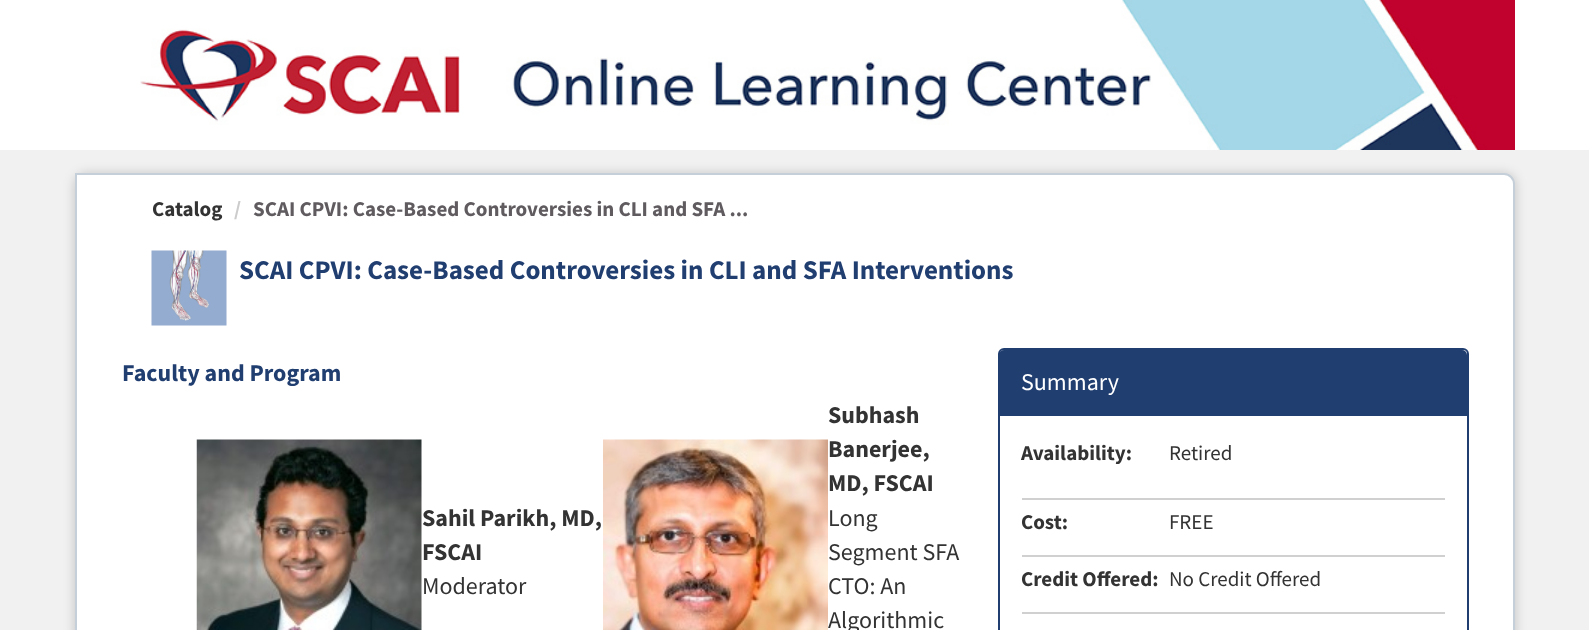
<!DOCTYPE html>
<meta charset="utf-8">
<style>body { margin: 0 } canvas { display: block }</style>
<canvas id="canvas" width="1589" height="630"></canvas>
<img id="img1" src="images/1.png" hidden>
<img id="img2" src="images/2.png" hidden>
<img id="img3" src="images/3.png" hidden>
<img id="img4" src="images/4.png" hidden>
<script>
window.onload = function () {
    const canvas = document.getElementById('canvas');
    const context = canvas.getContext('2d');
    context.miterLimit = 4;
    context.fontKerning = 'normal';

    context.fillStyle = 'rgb(241, 241, 241)';
    context.fillRect(0, 0, 1589, 630);
    context.fillStyle = 'rgb(255, 255, 255)';
    context.fillRect(0, 0, 1589, 150);
    context.drawImage(document.getElementById('img1'), 140, 0, 1375, 150);
    context.fillStyle = 'rgba(0, 0, 0, 0.2)';
    context.filter = 'blur(6px)';
    context.beginPath();
    context.roundRect(75, 174, 1440, 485, 11);
    context.fill();
    context.filter = 'none';
    context.fillStyle = 'rgb(255, 255, 255)';
    context.beginPath();
    context.moveTo(76, 174);
    context.lineTo(1504, 174);
    context.bezierCurveTo(1509.5, 174, 1514, 178.5, 1514, 184);
    context.lineTo(1514, 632);
    context.bezierCurveTo(1514, 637.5, 1509.5, 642, 1504, 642);
    context.lineTo(76, 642);
    context.closePath();
    context.fill();
    context.strokeStyle = 'rgb(197, 207, 217)';
    context.lineWidth = 2;
    context.stroke();
    context.drawImage(document.getElementById('img2'), 151, 250, 76, 76);
    context.drawImage(document.getElementById('img3'), 196, 439, 226, 191);
    context.drawImage(document.getElementById('img4'), 603, 439, 225, 191);
    context.beginPath();
    context.roundRect(999, 349, 469, 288, 5);
    context.strokeStyle = 'rgb(33, 62, 113)';
    context.stroke();
    context.fillStyle = 'rgb(33, 62, 113)';
    context.beginPath();
    context.roundRect(999, 350, 468, 66, [5, 5, 0, 0]);
    context.fill();
    context.fillStyle = 'rgb(208, 208, 208)';
    context.fillRect(1022, 498, 423, 2);
    context.fillRect(1022, 555, 423, 2);
    context.fillRect(1022, 612, 423, 2);
    context.font = 'bold 21px Source Sans Pro';
    context.fillStyle = 'rgb(51, 51, 51)';
    context.fillText('Catalog', 152, 216);
    context.fillStyle = 'rgb(204, 204, 204)';
    context.fillText('/', 234, 216);
    context.fillStyle = 'rgb(95, 91, 95)';
    context.fillText('SCAI CPVI: Case-Based Controversies in CLI and SFA ...', 253, 216);
    context.font = 'bold 27px Source Sans Pro';
    context.fillStyle = 'rgb(33, 62, 113)';
    context.fillText('SCAI CPVI: Case-Based Controversies in CLI and SFA Interventions', 239, 279);
    context.font = 'bold 24px Source Sans Pro';
    context.fillText('Faculty and Program', 122, 381);
    context.fillStyle = 'rgb(51, 51, 51)';
    context.fillText('Sahil Parikh, MD,', 422, 526);
    context.fillText('FSCAI', 422, 560);
    context.font = '24px Source Sans Pro';
    context.fillText('Moderator', 422, 594);
    context.font = 'bold 24px Source Sans Pro';
    context.fillText('Subhash', 828, 423);
    context.fillText('Banerjee,', 828, 457);
    context.fillText('MD, FSCAI', 828, 491);
    context.font = '24px Source Sans Pro';
    context.fillText('Long', 828, 526);
    context.fillText('Segment SFA', 828, 560);
    context.fillText('CTO: An', 828, 594);
    context.fillText('Algorithmic', 828, 628);
    context.fillStyle = 'rgb(255, 255, 255)';
    context.fillText('Summary', 1021, 390);
    context.font = 'bold 21px Source Sans Pro';
    context.fillStyle = 'rgb(51, 51, 51)';
    context.fillText('Availability:', 1021, 460);
    context.font = '21px Source Sans Pro';
    context.fillText('Retired', 1169, 460);
    context.font = 'bold 21px Source Sans Pro';
    context.fillText('Cost:', 1021, 529);
    context.font = '21px Source Sans Pro';
    context.fillText('FREE', 1169, 529);
    context.font = 'bold 21px Source Sans Pro';
    context.fillText('Credit Offered:', 1021, 586);
    context.font = '21px Source Sans Pro';
    context.fillText('No Credit Offered', 1169, 586);
};
</script>
